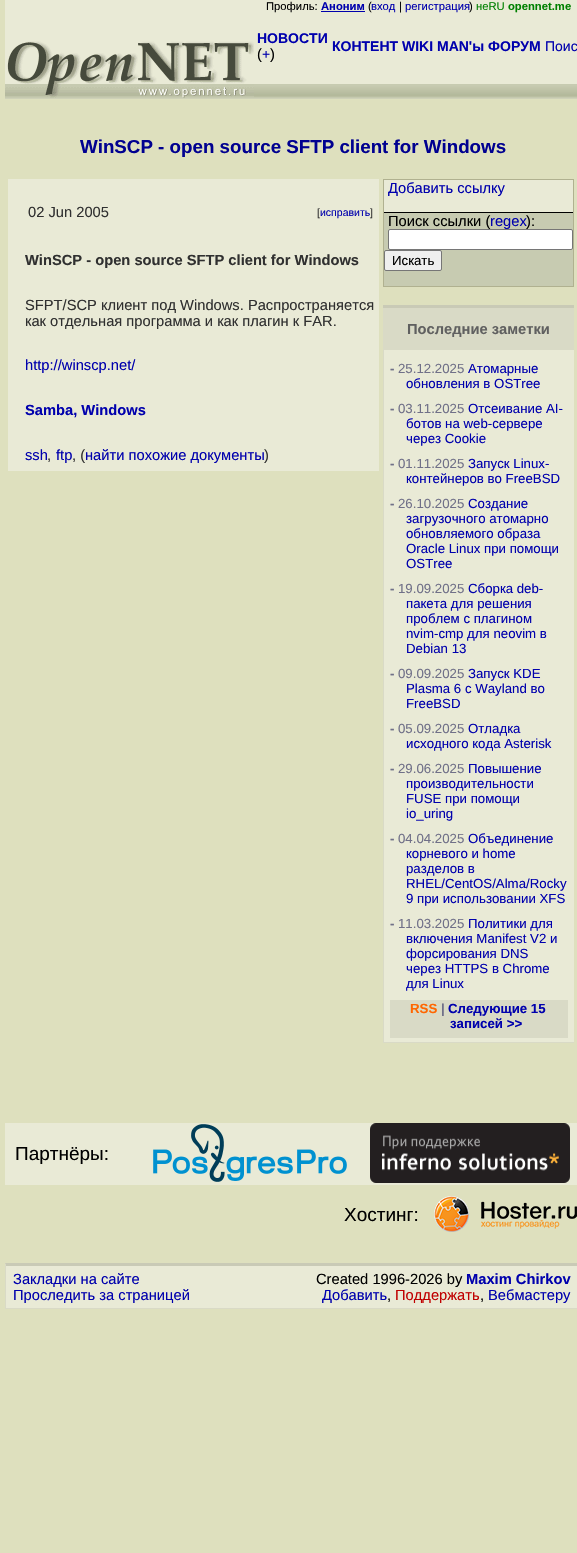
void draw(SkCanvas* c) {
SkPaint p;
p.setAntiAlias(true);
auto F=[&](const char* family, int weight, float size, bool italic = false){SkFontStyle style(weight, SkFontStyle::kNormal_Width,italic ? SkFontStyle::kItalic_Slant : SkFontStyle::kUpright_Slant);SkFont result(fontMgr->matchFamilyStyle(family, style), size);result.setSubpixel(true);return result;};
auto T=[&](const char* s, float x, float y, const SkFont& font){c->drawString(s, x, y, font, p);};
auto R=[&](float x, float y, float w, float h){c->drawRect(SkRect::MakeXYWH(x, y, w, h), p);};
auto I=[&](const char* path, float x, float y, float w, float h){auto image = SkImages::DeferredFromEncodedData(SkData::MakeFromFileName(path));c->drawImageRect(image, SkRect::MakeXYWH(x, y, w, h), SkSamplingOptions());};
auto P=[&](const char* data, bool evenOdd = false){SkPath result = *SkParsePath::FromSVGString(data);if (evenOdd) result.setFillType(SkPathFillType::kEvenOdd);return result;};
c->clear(0xffdee0be);
p.setColor(0xffe9ead6);
R(5,0,572,2);
R(5,2,572,82);
auto f1 = F("Liberation Sans",400,11.25);
p.setColor(0xff000000);
T("Профиль:",266,10,f1);
auto f2 = F("Liberation Sans",700,11.25);
p.setColor(0xff0000ad);
T("Аноним",321,10,f2);
R(321,11,44,1);
p.setColor(0xff000000);
T("(",368,10,f1);
p.setColor(0xff0000ad);
T("вход",371,10,f1);
p.setColor(0xff000000);
T("|",399,10,f1);
p.setColor(0xff0000ad);
T("регистрация",405,10,f1);
p.setColor(0xff000000);
T(")",469,10,f1);
p.setColor(0xff008000);
T("неRU",476,10,f1);
T("opennet.me",508,10,f2);
I("1.png",5,98,249,1);
I("2.png",5,41,249,57);
I("3.png",254,84,323,15);
auto f3 = F("Liberation Sans",700,14);
p.setColor(0xff0000ad);
T("НОВОСТИ",257,43,f3);
auto f4 = F("Liberation Sans",400,14.7);
p.setColor(0xff000000);
T("(",257,59,f4);
auto f5 = F("Liberation Sans",400,14);
p.setColor(0xff0000ad);
T("+",262,59,f5);
p.setColor(0xff000000);
T(")",270,59,f4);
p.setColor(0xff0000ad);
T("КОНТЕНТ WIKI MAN'ы ФОРУМ",332,51,f3);
T("Поис",545,51,f5);
auto f6 = F("Liberation Sans",700,18.75);
p.setColor(0xff000090);
T("WinSCP - open source SFTP client for Windows",80,153,f6);
p.setColor(0xffe9ead6);
R(8,179,371,292);
p.setColor(0xff303030);
T("02 Jun 2005",28,217,f4);
auto f7 = F("Liberation Sans",400,10.5);
T("[",317,216,f7);
p.setColor(0xff0000ad);
T("исправить",320,216,f7);
p.setColor(0xff303030);
T("]",370,216,f7);
auto f8 = F("Liberation Sans",700,14.7);
T("WinSCP - open source SFTP client for Windows",25,265,f8);
T("SFPT/SCP клиент под Windows. Распространяется",25,310,f4);
T("как отдельная программа и как плагин к FAR.",25,326,f4);
p.setColor(0xff0000ad);
T("http://winscp.net/",25,370,f4);
T("Samba, Windows",25,415,f8);
T("ssh",25,460,f4);
p.setColor(0xff303030);
T(",",47,460,f4);
p.setColor(0xff0000ad);
T("ftp",56,460,f4);
p.setColor(0xff303030);
T(", (",72,460,f4);
p.setColor(0xff0000ad);
T("найти похожие документы",85,460,f4);
p.setColor(0xff303030);
T(")",264,460,f4);
p.setColor(0xffb0b190);
R(383,179,191,108);
p.setColor(0xffe9ead6);
R(384,180,189,32);
p.setColor(0xff0000ad);
T("Добавить ссылку",388,193,f4);
p.setColor(0xff000000);
R(384,212,189,1);
p.setColor(0xffc7cbb1);
R(384,213,189,73);
p.setColor(0xff000000);
T("Поиск ссылки (",388,226,f4);
p.setColor(0xff0000ad);
T("regex",490,226,f4);
p.setColor(0xff000000);
T("):",526,226,f4);
p.setColor(0xffffffff);
c->drawRoundRect(SkRect::MakeXYWH(388.5,229.5,184,20),1.5,1.5,p);
p.setStroke(true);
p.setStrokeWidth(1);
p.setColor(0xff767676);
c->drawRoundRect(SkRect::MakeXYWH(388.5,229.5,184,20),1.5,1.5,p);
p.setStroke(false);
p.setColor(0xffefefef);
c->drawRoundRect(SkRect::MakeXYWH(384.5,250.5,57,20),1.5,1.5,p);
p.setStroke(true);
p.setColor(0xff767676);
c->drawRoundRect(SkRect::MakeXYWH(384.5,250.5,57,20),1.5,1.5,p);
auto f9 = F("Liberation Sans",400,13.25);
p.setStroke(false);
p.setColor(0xff000000);
T("Искать",392,265,f9);
p.setColor(0xffd9dac6);
R(383,308,191,42);
p.setColor(0xffc9cab6);
R(383,305,191,3);
p.setColor(0xff606060);
T("Последние заметки",407,334,f8);
p.setColor(0xffe9ead6);
R(384,350,190,692);
p.setColor(0xffd9dac6);
R(383,1042,191,1);
R(383,350,1,693);
auto f10 = F("Liberation Sans",700,13.25);
p.setColor(0xff707088);
T("-",390,373,f10);
T("25.12.2025",398,373,f9);
p.setColor(0xff0000ad);
T("Атомарные",468,373,f9);
T("обновления в OSTree",406,388,f9);
p.setColor(0xff707088);
T("-",390,413,f10);
T("03.11.2025",398,413,f9);
p.setColor(0xff0000ad);
T("Отсеивание AI-",468,413,f9);
T("ботов на web-сервере",406,428,f9);
T("через Cookie",406,443,f9);
p.setColor(0xff707088);
T("-",390,468,f10);
T("01.11.2025",398,468,f9);
p.setColor(0xff0000ad);
T("Запуск Linux-",468,468,f9);
T("контейнеров во FreeBSD",406,483,f9);
p.setColor(0xff707088);
T("-",390,508,f10);
T("26.10.2025",398,508,f9);
p.setColor(0xff0000ad);
T("Создание",468,508,f9);
T("загрузочного атомарно",406,523,f9);
T("обновляемого образа",406,538,f9);
T("Oracle Linux при помощи",406,553,f9);
T("OSTree",406,568,f9);
p.setColor(0xff707088);
T("-",390,593,f10);
T("19.09.2025",398,593,f9);
p.setColor(0xff0000ad);
T("Сборка deb-",468,593,f9);
T("пакета для решения",406,608,f9);
T("проблем с плагином",406,623,f9);
T("nvim-cmp для neovim в",406,638,f9);
T("Debian 13",406,653,f9);
p.setColor(0xff707088);
T("-",390,678,f10);
T("09.09.2025",398,678,f9);
p.setColor(0xff0000ad);
T("Запуск KDE",468,678,f9);
T("Plasma 6 с Wayland во",406,693,f9);
T("FreeBSD",406,708,f9);
p.setColor(0xff707088);
T("-",390,733,f10);
T("05.09.2025",398,733,f9);
p.setColor(0xff0000ad);
T("Отладка",468,733,f9);
T("исходного кода Asterisk",406,748,f9);
p.setColor(0xff707088);
T("-",390,773,f10);
T("29.06.2025",398,773,f9);
p.setColor(0xff0000ad);
T("Повышение",468,773,f9);
T("производительности",406,788,f9);
T("FUSE при помощи",406,803,f9);
T("io_uring",406,818,f9);
p.setColor(0xff707088);
T("-",390,843,f10);
T("04.04.2025",398,843,f9);
p.setColor(0xff0000ad);
T("Объединение",468,843,f9);
T("корневого и home",406,858,f9);
T("разделов в",406,873,f9);
T("RHEL/CentOS/Alma/Rocky",406,888,f9);
T("9 при использовании XFS",406,903,f9);
p.setColor(0xff707088);
T("-",390,928,f10);
T("11.03.2025",398,928,f9);
p.setColor(0xff0000ad);
T("Политики для",468,928,f9);
T("включения Manifest V2 и",406,943,f9);
T("форсирования DNS",406,958,f9);
T("через HTTPS в Chrome",406,973,f9);
T("для Linux",406,988,f9);
p.setColor(0xffd9dac6);
R(390,1000,178,38);
p.setColor(0xffff6600);
T("RSS",410,1013,f10);
p.setColor(0xff707088);
T("|",441,1013,f10);
p.setColor(0xff0000ad);
T("Следующие 15",448,1013,f10);
T("записей >>",450,1028,f10);
p.setColor(0xffe9ead6);
R(5,1123,572,62);
auto f11 = F("Liberation Sans",400,19);
p.setColor(0xff000000);
T("Партнёры:",15,1160,f11);
I("4.png",153,1124,194,58);
I("5.png",370,1123,200,60);
T("Хостинг:",344,1221,f11);
I("6.png",434,1196,143,36);
p.setColor(0xffe9ead6);
R(5,1263,572,45);
p.setColor(0xffc9cab6);
c->drawPath(P("M5 1263h572v3h-571z"),p);
p.setColor(0xffd9dac6);
R(5,1308,572,1);
c->drawPath(P("M5 1309v-46l1 3v42z"),p);
p.setColor(0xff0000ad);
T("Закладки на сайте",13,1284,f4);
T("Проследить за страницей",13,1300,f4);
p.setColor(0xff000000);
T("Created 1996-2026 by",316,1284,f4);
p.setColor(0xff0000ad);
T("Maxim Chirkov",466,1284,f8);
T("Добавить",322,1300,f4);
p.setColor(0xff000000);
T(",",387,1300,f4);
p.setColor(0xffc00000);
T("Поддержать",395,1300,f4);
p.setColor(0xff000000);
T(",",480,1300,f4);
p.setColor(0xff0000ad);
T("Вебмастеру",488,1300,f4);
}
